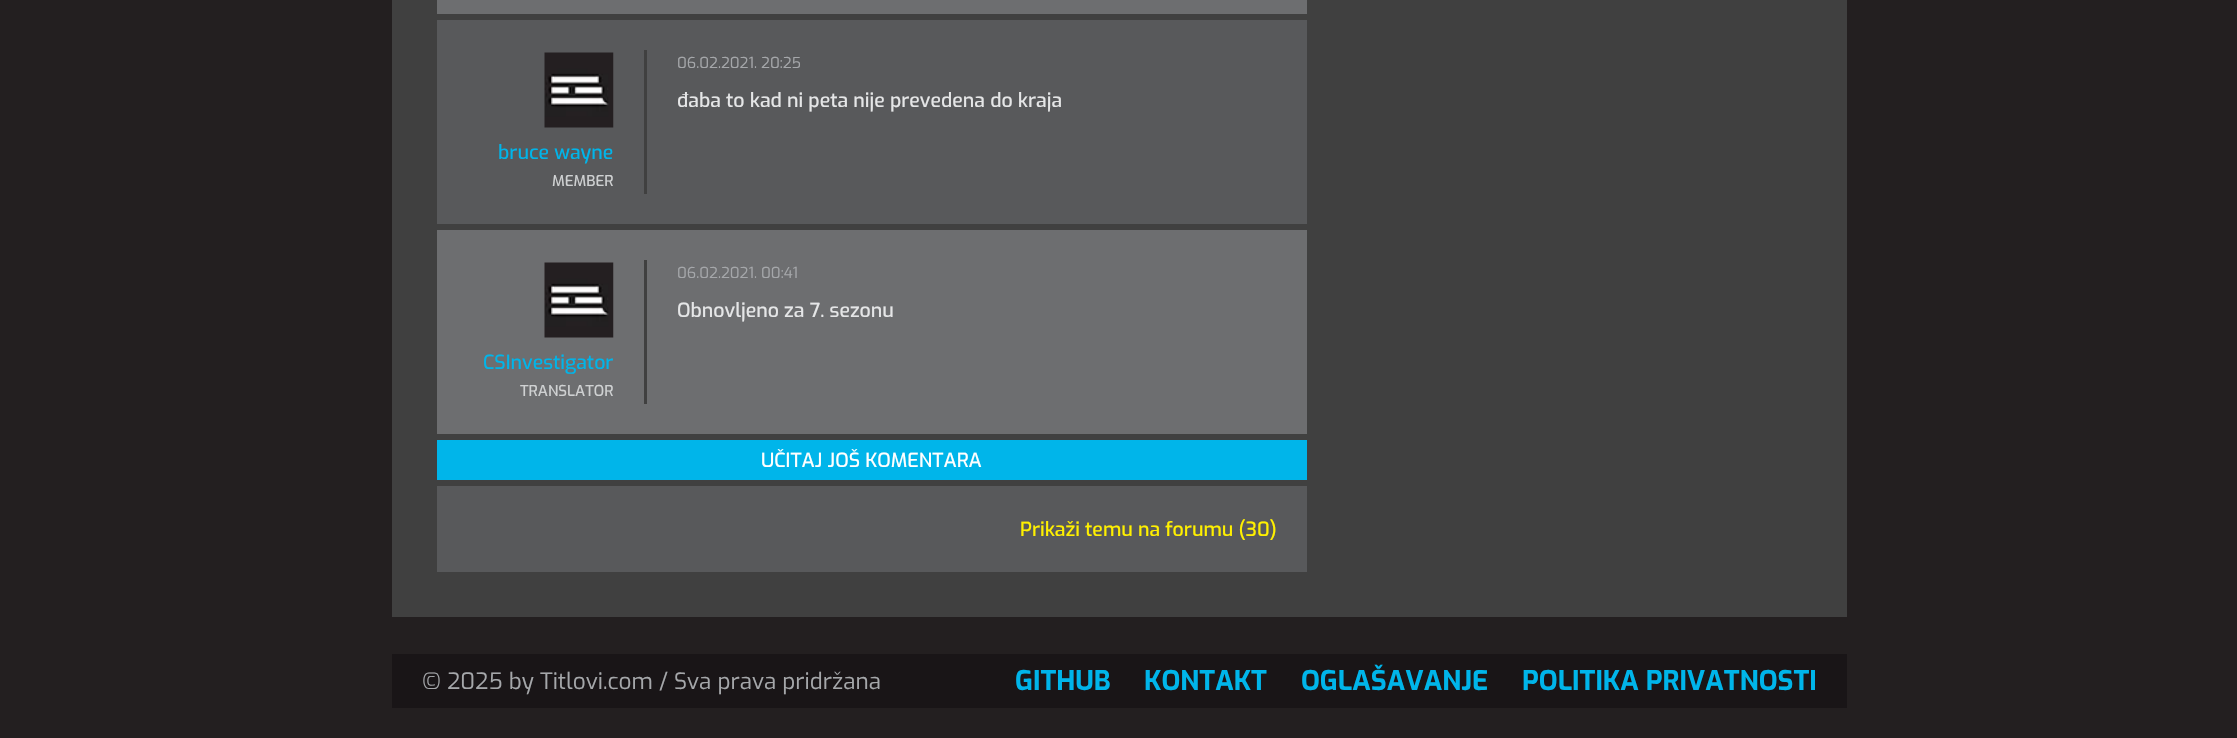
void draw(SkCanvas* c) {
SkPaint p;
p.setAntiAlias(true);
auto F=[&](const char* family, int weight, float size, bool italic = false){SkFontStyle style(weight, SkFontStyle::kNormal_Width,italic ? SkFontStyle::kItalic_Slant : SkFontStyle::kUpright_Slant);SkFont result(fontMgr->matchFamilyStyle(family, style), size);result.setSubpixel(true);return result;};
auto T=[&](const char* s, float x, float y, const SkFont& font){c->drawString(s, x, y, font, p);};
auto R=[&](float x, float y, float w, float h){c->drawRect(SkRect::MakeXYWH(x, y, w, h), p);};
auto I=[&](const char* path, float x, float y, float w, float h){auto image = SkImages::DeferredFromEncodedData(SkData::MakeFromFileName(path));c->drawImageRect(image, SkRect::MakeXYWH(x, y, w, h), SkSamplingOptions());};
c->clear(0xff231f20);
p.setColor(0xff404040);
R(392,0,1455,617);
p.setColor(0xff6d6e70);
R(437,0,870,14);
p.setColor(0xff58595b);
R(437,20,870,204);
auto f1 = F("Exo",400,15);
p.setColor(0xffa5a7aa);
T("06.02.2021. 20:25",677,68,f1);
auto f2 = F("Exo",500,19.5);
p.setColor(0xffe5e6e7);
T("đaba to kad ni peta nije prevedena do kraja",677,107,f2);
p.setColor(0xff404040);
R(644,50,3,144);
I("1.png",544,52,70,76);
p.setColor(0xff00b5ea);
T("bruce wayne",498,159,f2);
auto f3 = F("Exo",500,15);
p.setColor(0xffcfd1d2);
T("MEMBER",552,186,f3);
p.setColor(0xff6d6e70);
R(437,230,870,204);
p.setColor(0xffa5a7aa);
T("06.02.2021. 00:41",677,278,f1);
p.setColor(0xffe5e6e7);
T("Obnovljeno za 7. sezonu",677,317,f2);
p.setColor(0xff404040);
R(644,260,3,144);
I("2.png",544,262,70,76);
p.setColor(0xff00b5ea);
T("CSInvestigator",483,369,f2);
p.setColor(0xffcfd1d2);
T("TRANSLATOR",520,396,f3);
p.setColor(0xff00b5ea);
R(437,440,870,40);
p.setColor(0xffffffff);
T("UČITAJ JOŠ KOMENTARA",761,467,f2);
p.setColor(0xff58595b);
R(437,486,870,86);
p.setColor(0xfffff000);
T("Prikaži temu na forumu (30)",1020,536,f2);
p.setColor(0xff191517);
R(392,654,1455,54);
auto f4 = F("Exo",400,22.5);
p.setColor(0xffa5a7aa);
T("© 2025 by Titlovi.com / Sva prava pridržana",422,689,f4);
auto f5 = F("Exo",700,27);
p.setColor(0xff00b5ea);
T("GITHUB",1015,690,f5);
T("KONTAKT",1144,690,f5);
T("OGLAŠAVANJE",1301,690,f5);
T("POLITIKA PRIVATNOSTI",1522,690,f5);
}
